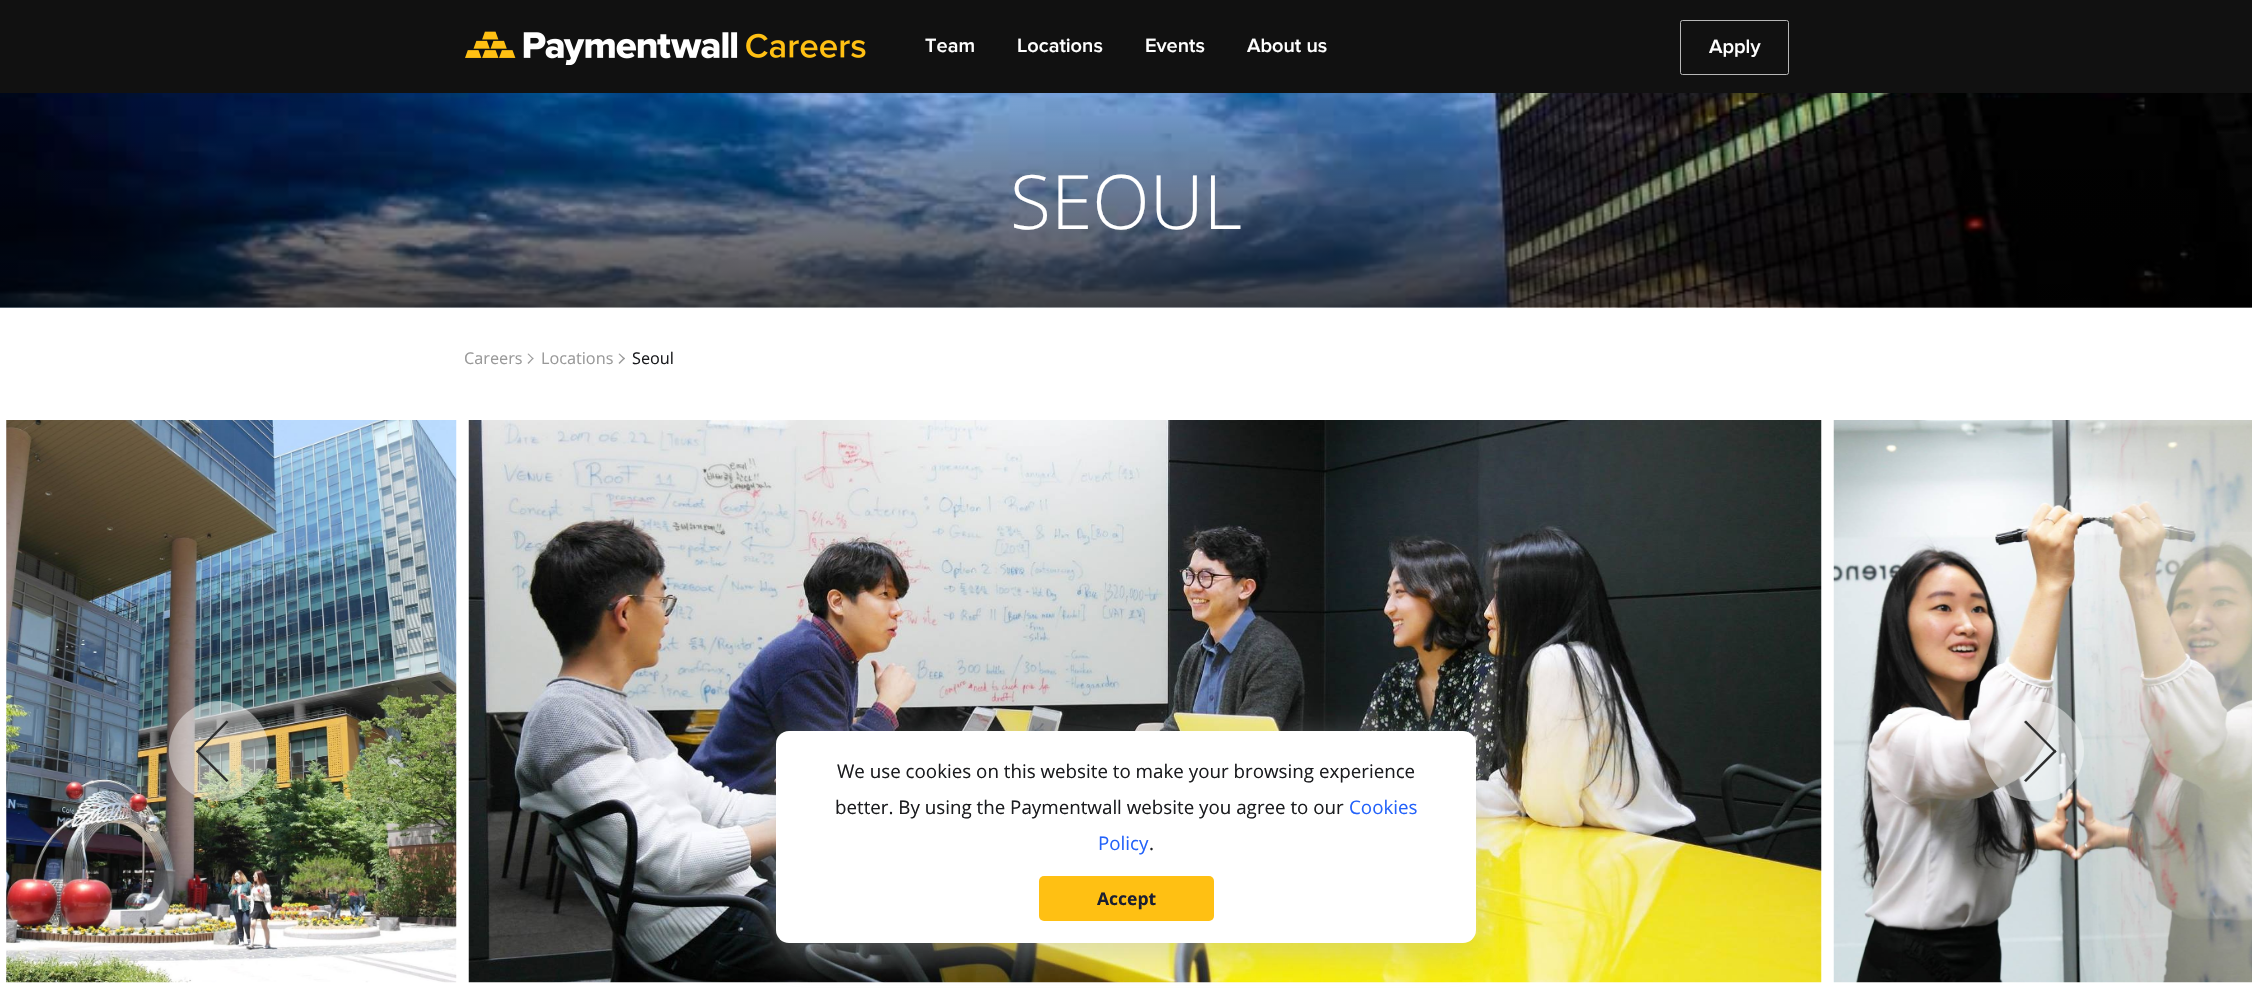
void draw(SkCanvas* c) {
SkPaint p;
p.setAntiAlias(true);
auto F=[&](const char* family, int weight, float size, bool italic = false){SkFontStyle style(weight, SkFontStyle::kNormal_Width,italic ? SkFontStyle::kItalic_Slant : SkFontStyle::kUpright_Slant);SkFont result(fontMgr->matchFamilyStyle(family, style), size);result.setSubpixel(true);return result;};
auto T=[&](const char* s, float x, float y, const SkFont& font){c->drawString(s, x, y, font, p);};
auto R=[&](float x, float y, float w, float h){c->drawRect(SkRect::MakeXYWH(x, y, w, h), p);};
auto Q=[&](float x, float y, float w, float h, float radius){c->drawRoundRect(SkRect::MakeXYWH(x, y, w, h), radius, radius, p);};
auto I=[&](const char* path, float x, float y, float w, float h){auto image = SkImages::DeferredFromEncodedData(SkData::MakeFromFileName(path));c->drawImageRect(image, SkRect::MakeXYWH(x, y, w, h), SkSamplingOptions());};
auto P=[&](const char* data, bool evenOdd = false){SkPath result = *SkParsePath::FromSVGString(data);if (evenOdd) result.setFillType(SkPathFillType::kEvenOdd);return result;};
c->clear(0xffffffff);
p.setColor(0xff111111);
R(0,0,2252,93);
I("1.png",465,31,401,34);
auto f1 = F("Proxima Nova",600,20);
p.setColor(0xffffffff);
T("Team",925,52,f1);
T("Locations",1017,52,f1);
T("Events",1145,52,f1);
T("About us",1247,52,f1);
p.setStroke(true);
p.setStrokeWidth(1);
p.setColor(0xffb8b8b8);
c->drawRoundRect(SkRect::MakeXYWH(1680.5,20.5,108,54),2,2,p);
p.setStroke(false);
p.setColor(0xffffffff);
T("Apply",1709,53,f1);
I("2.png",0,93,2252,215);
auto f2 = F("Open Sans",300,75);
T("SEOUL",1010,229,f2);
auto f3 = F("Open Sans",400,16.25);
p.setColor(0xff999999);
T("Careers",464,364,f3);
c->drawPath(P("M528.5 353.5l5 5l-.5 1l-5.5-5.5z"),p);
c->drawPath(P("M533 357.5l.5 1l-5 5.5l-1-1z"),p);
T("Locations",541,364,f3);
c->drawPath(P("M619.5 353.5l5.5 5l-1 1l-5.5-5.5z"),p);
c->drawPath(P("M624 357.5l1 1l-5.5 5.5l-1-1z"),p);
p.setColor(0xff1b1c1f);
T("Seoul",632,364,f3);
I("3.png",6,420,451,563);
I("4.png",468,420,1354,563);
I("5.png",1833,420,419,563);
p.setColor(0x73ffffff);
c->drawPath(P("M183 787c-19-20-19-52 0-71c20-20 52-20 71 0c20 19 20 51 0 71c-19 19-51 19-71 0z"),p);
p.setColor(0xff2d2e2e);
c->drawPath(P("M226.5 782l-30.5-30.5l1.5-2l31 31z"),p);
c->drawPath(P("M197.5 753l-1.5-1.5l30.5-31l2 1.5z"),p);
p.setColor(0x73ffffff);
c->drawPath(P("M2069 716c20 19 20 51 0 71c-19 19-51 19-71 0c-19-20-19-52 0-71c20-20 52-20 71 0z"),p);
p.setColor(0xff2d2e2e);
c->drawPath(P("M2026 720.5l30.5 31l-1.5 1.5l-31-31z"),p);
c->drawPath(P("M2055 749.5l1.5 2l-30.5 30.5l-2-1.5z"),p);
p.setColor(0x80b4babd);
p.setMaskFilter(SkMaskFilter::MakeBlur(kNormal_SkBlurStyle, 18));
c->drawRoundRect(SkRect::MakeXYWH(776,741,700,212),13,13,p);
p.setMaskFilter(nullptr);
p.setColor(0xffffffff);
Q(776,731,700,212,13);
auto f4 = F("Open Sans",400,18.75);
p.setColor(0xff1b1c1f);
T("We use cookies on this website to make your browsing experience",837,778,f4);
T("better. By using the Paymentwall website you agree to our",835,814,f4);
p.setColor(0xff2362fa);
T("Cookies",1349,814,f4);
T("Policy",1098,850,f4);
p.setColor(0xff1b1c1f);
T(".",1149,850,f4);
p.setColor(0xffffc013);
Q(1039,876,175,45,5);
auto f5 = F("Open Sans",700,17.5);
p.setColor(0xff1b1f31);
T("Accept",1097,905,f5);
}
